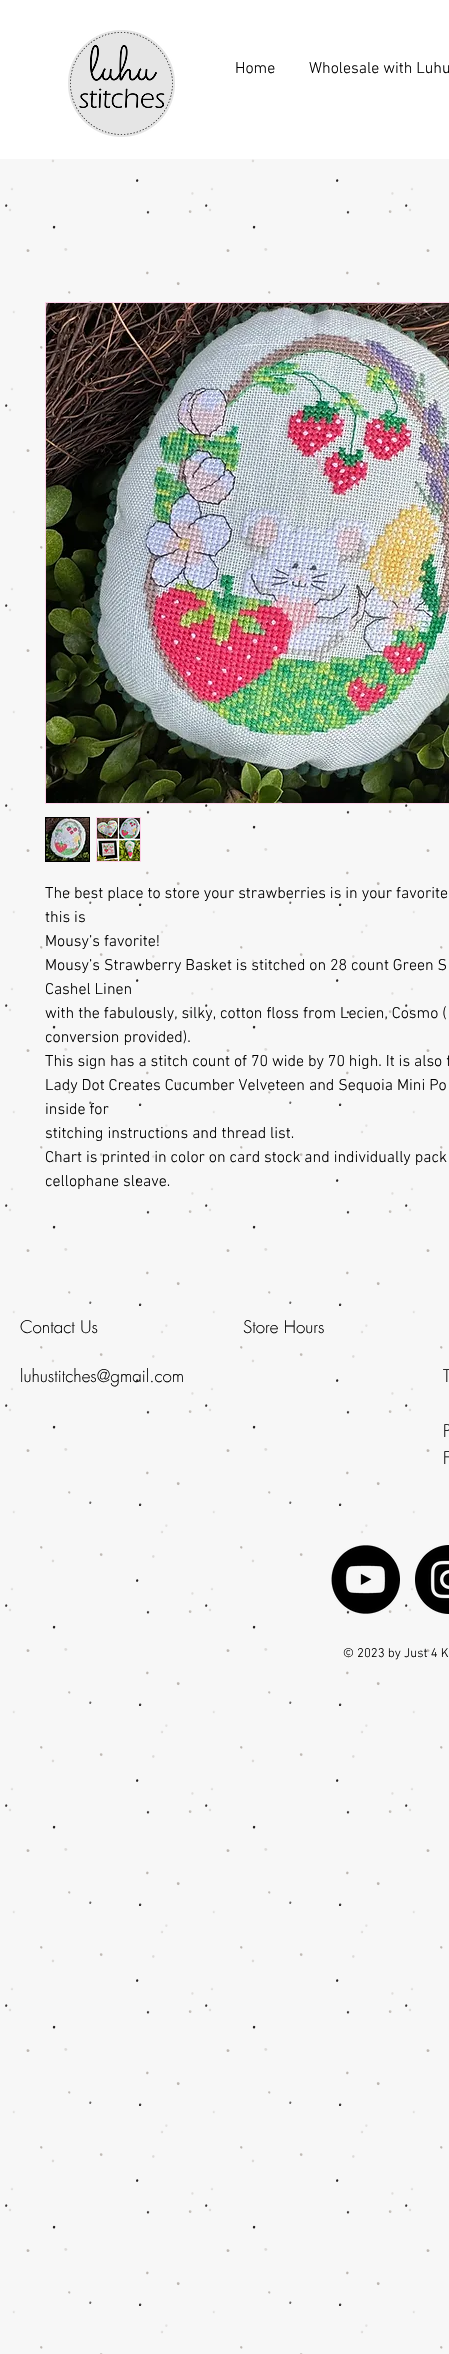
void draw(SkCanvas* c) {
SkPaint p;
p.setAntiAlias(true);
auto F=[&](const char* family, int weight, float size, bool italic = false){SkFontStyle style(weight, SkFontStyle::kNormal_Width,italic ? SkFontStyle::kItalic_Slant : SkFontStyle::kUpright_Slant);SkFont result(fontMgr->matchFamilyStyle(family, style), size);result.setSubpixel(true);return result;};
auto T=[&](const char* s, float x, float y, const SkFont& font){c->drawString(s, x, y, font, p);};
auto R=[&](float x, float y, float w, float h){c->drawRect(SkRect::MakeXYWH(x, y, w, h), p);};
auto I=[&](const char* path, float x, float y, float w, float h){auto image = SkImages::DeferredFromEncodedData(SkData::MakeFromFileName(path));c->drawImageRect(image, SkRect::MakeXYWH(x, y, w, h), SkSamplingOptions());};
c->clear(0xfff7f7f7);
p.setColor(0xffffffff);
R(0,0,449,159);
I("1.png",68,30,107,107);
auto f1 = F("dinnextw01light",300,16);
p.setColor(0xff000000);
T("Home",235,73,f1);
T("Wholesale with Luhu",309,73,f1);
I("7.png",5,159,438,2195);
p.setStroke(true);
p.setStrokeWidth(1);
p.setColor(0xffffd1ea);
c->drawRect(SkRect::MakeXYWH(45.5,302.5,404,501),p);
I("2.png",46,303,403,500);
p.setColor(0xff000000);
c->drawRect(SkRect::MakeXYWH(45.5,817.5,44,44),p);
I("3.png",46,818,43,43);
p.setColor(0xffffd1ea);
c->drawRect(SkRect::MakeXYWH(96.5,817.5,44,44),p);
I("4.png",97,818,43,43);
p.setStroke(false);
p.setColor(0xff000000);
T("The best place to store your strawberries is in your favorite",45,898,f1);
T("this is",45,922,f1);
T("Mousy’s favorite!",45,946,f1);
T("Mousy’s Strawberry Basket is stitched on 28 count Green S",45,970,f1);
T("Cashel Linen",45,994,f1);
T("with the fabulously, silky, cotton floss from Lecien, Cosmo (",45,1018,f1);
T("conversion provided).",45,1042,f1);
T("This sign has a stitch count of 70 wide by 70 high. It is also f",45,1066,f1);
T("Lady Dot Creates Cucumber Velveteen and Sequoia Mini Po",45,1090,f1);
T("inside for",45,1114,f1);
T("stitching instructions and thread list.",45,1138,f1);
T("Chart is printed in color on card stock and individually pack",45,1162,f1);
T("cellophane sleave.",45,1186,f1);
auto f2 = F("futura",300,17);
T("Contact Us",20,1333,f2);
T("Store Hours",243,1333,f2);
T("luhustitches@gmail.com",20,1382,f2);
T("T",443,1382,f2);
T("P",443,1437,f2);
T("F",443,1464,f2);
I("5.png",331,1545,69,69);
I("6.png",415,1545,34,69);
auto f3 = F("dinnextw01light",300,13);
T("© 2023 by Just 4 K",343,1657,f3);
}
